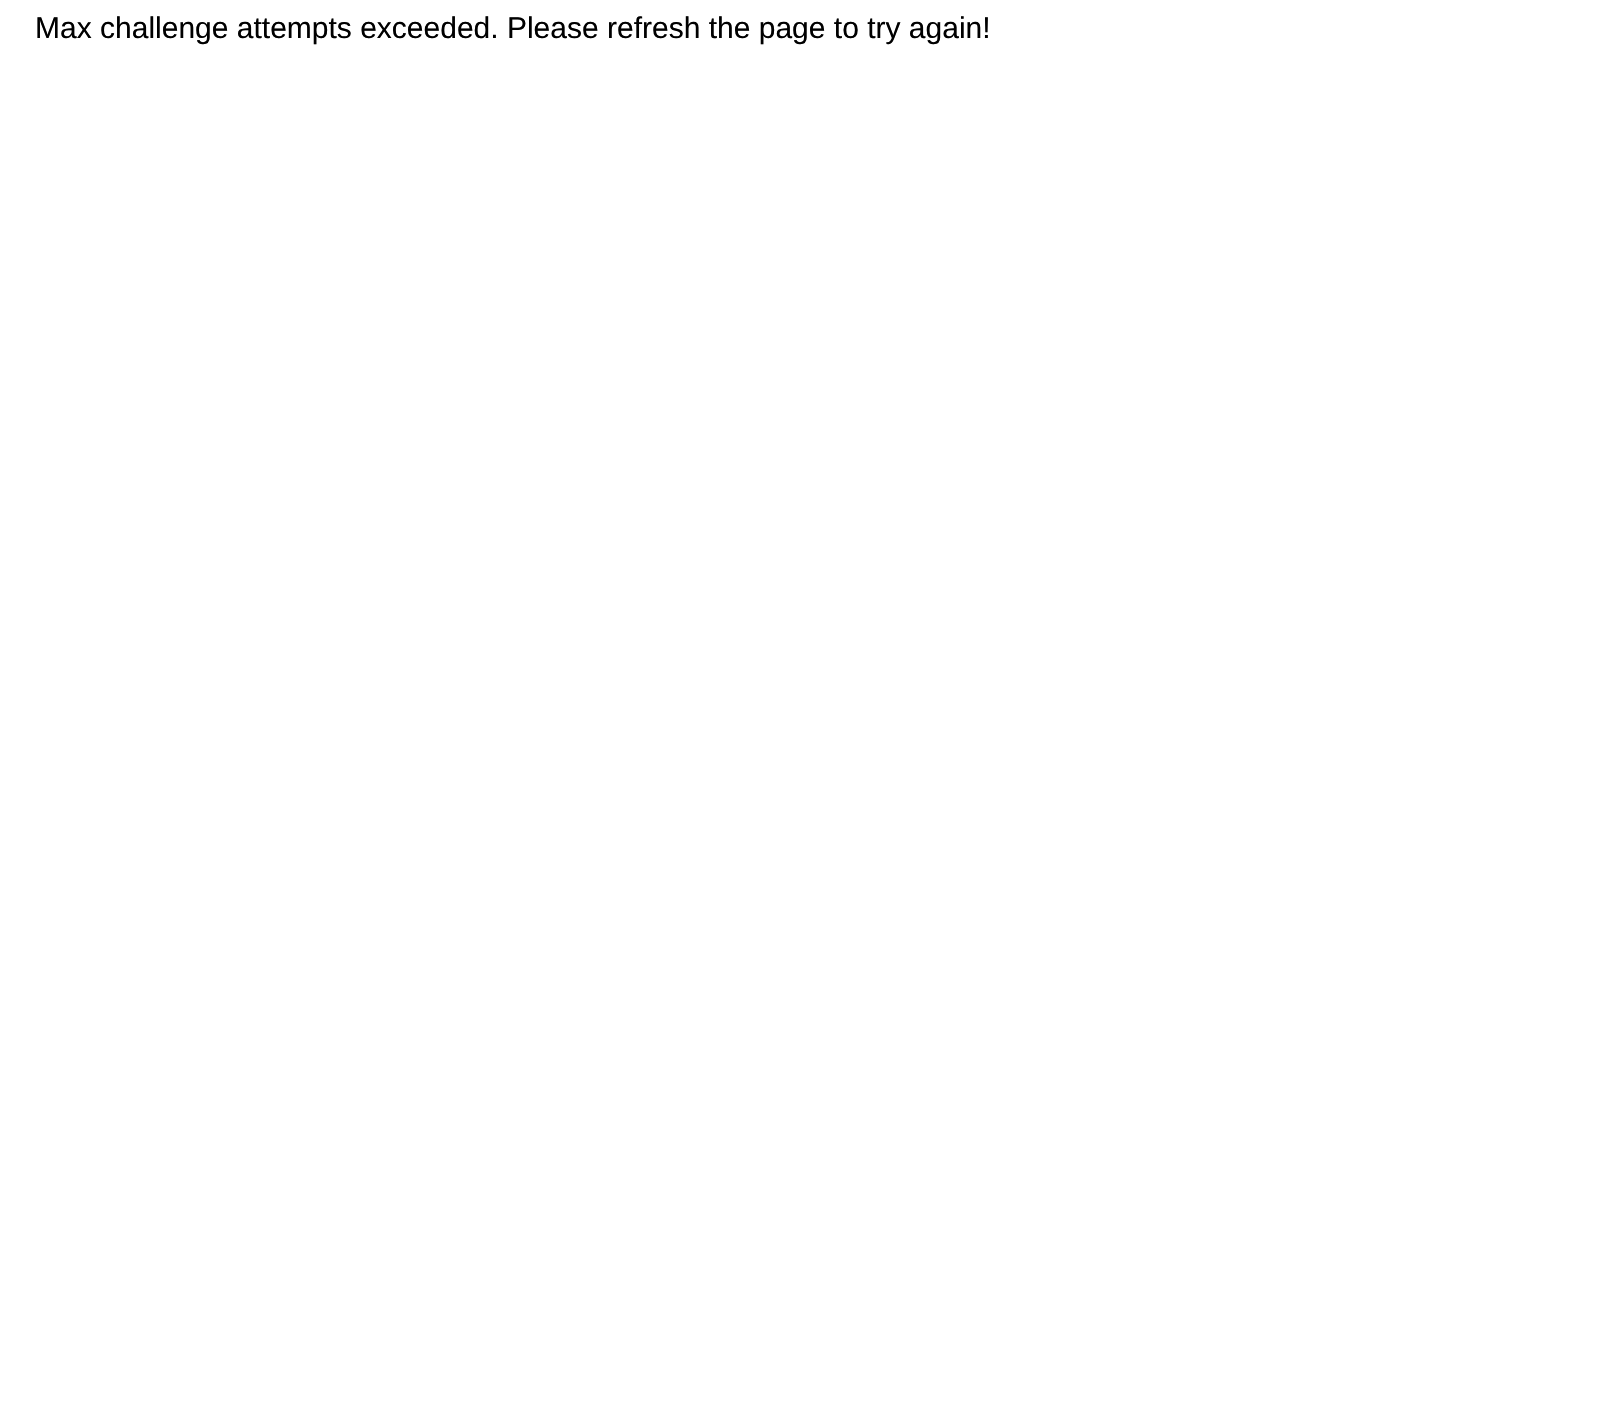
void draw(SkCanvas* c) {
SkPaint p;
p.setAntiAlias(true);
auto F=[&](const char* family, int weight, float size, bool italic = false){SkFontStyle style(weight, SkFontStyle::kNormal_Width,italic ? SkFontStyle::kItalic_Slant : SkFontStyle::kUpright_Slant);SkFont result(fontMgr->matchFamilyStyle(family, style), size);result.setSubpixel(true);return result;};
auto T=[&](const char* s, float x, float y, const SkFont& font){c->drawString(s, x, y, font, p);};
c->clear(0xffffffff);
auto f1 = F("Liberation Sans",400,30);
p.setColor(0xff000000);
T("Max challenge attempts exceeded. Please refresh the page to try again!",35,38,f1);
}
